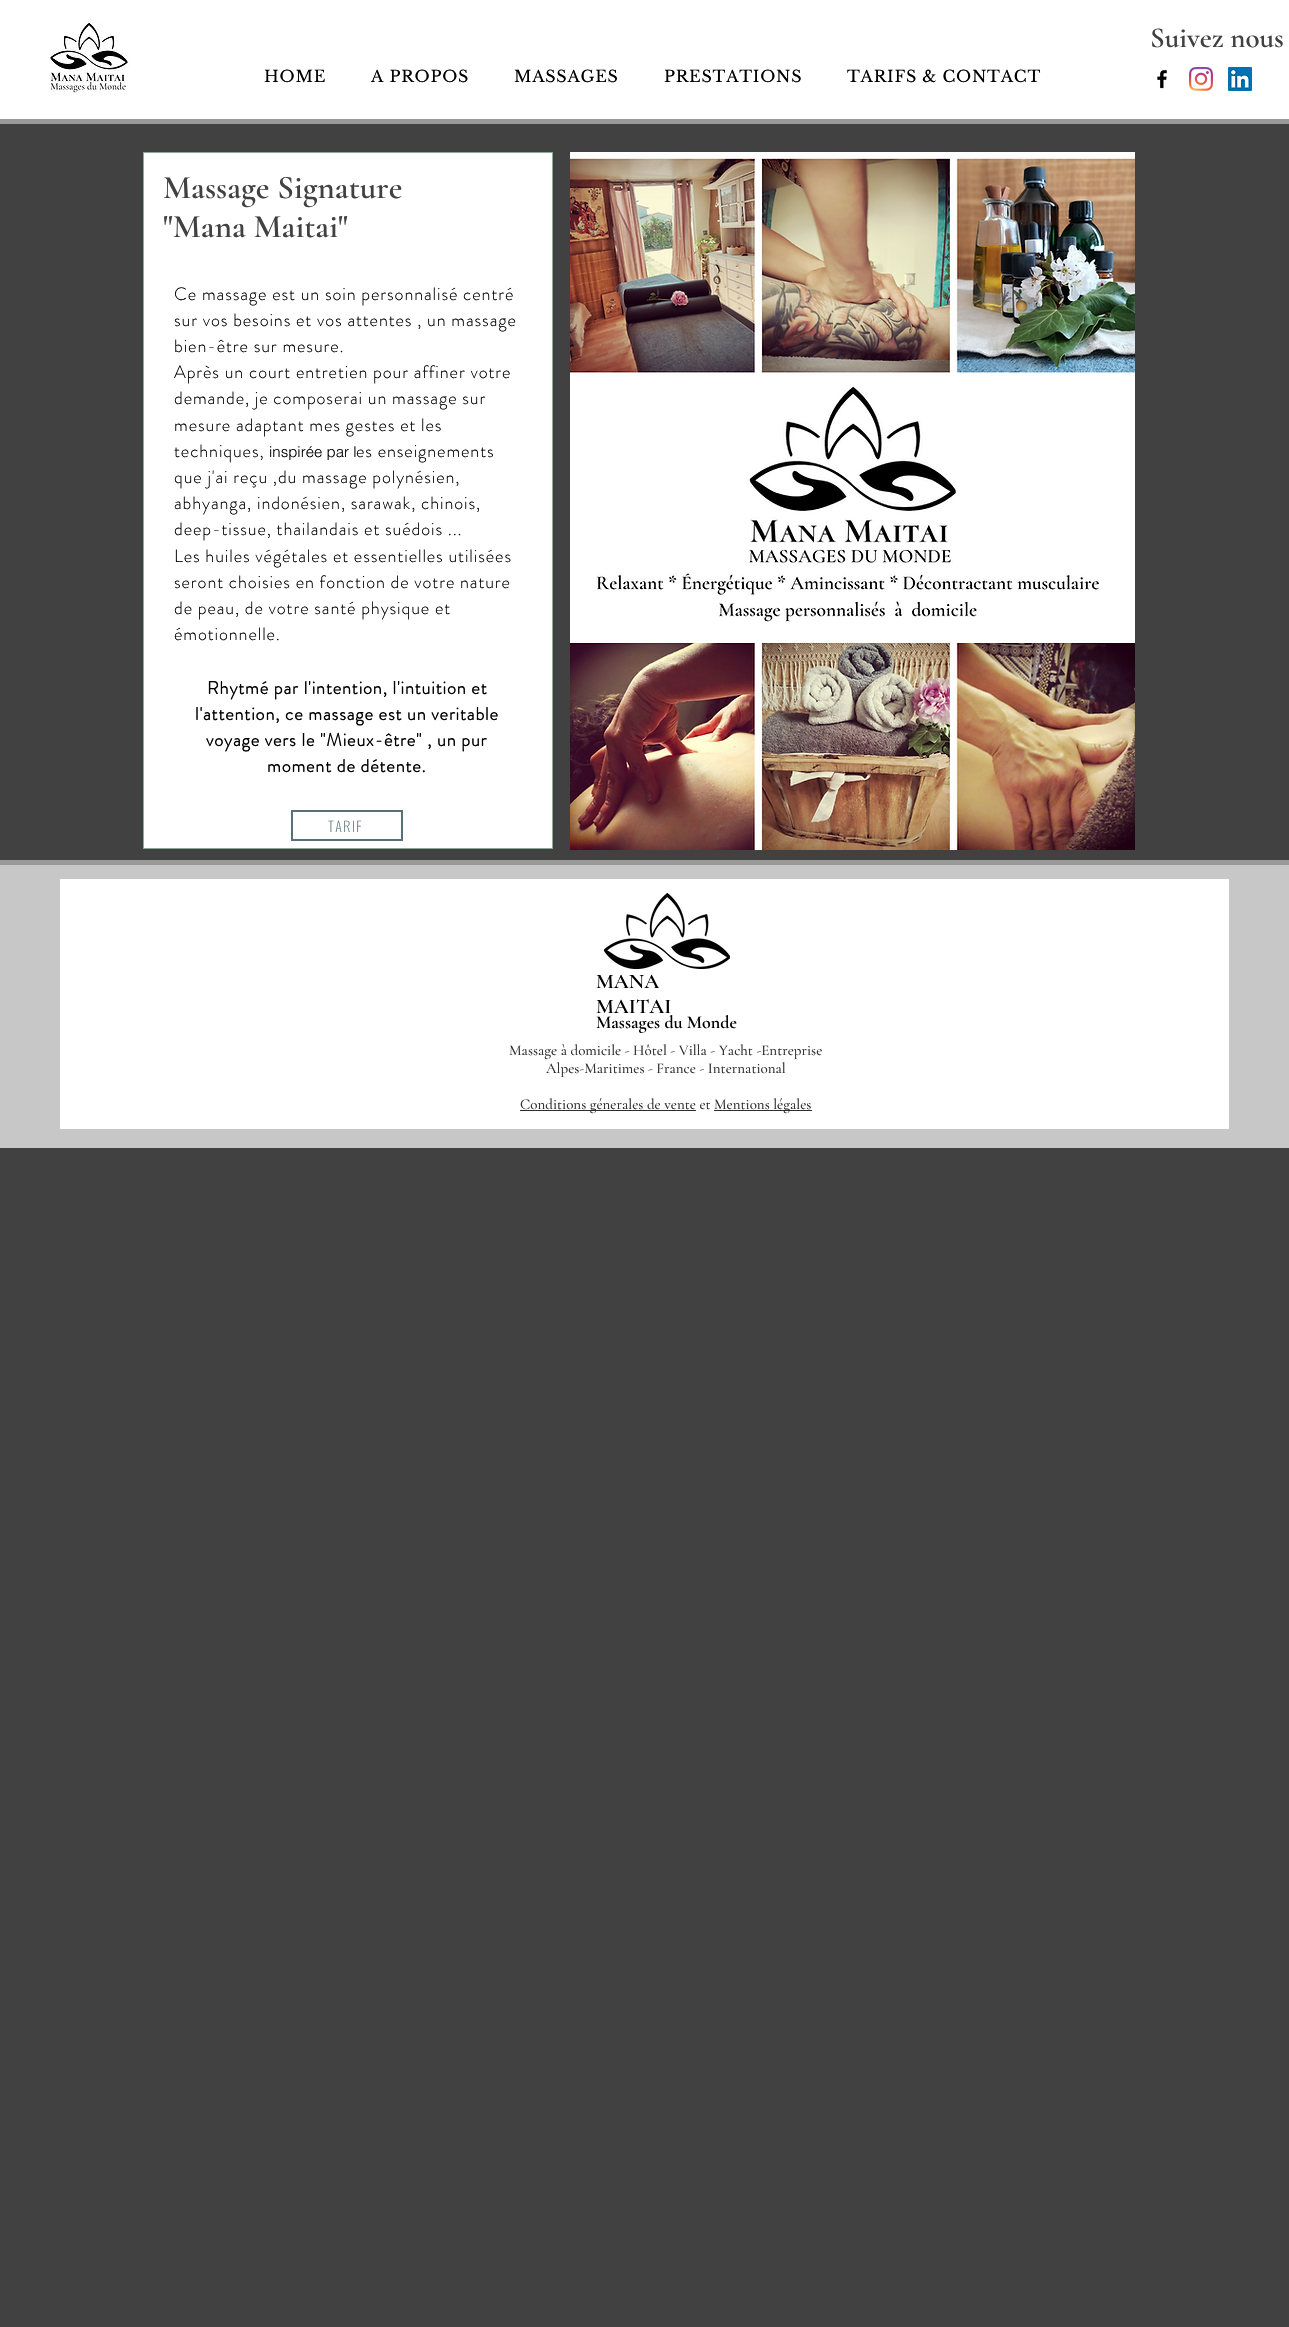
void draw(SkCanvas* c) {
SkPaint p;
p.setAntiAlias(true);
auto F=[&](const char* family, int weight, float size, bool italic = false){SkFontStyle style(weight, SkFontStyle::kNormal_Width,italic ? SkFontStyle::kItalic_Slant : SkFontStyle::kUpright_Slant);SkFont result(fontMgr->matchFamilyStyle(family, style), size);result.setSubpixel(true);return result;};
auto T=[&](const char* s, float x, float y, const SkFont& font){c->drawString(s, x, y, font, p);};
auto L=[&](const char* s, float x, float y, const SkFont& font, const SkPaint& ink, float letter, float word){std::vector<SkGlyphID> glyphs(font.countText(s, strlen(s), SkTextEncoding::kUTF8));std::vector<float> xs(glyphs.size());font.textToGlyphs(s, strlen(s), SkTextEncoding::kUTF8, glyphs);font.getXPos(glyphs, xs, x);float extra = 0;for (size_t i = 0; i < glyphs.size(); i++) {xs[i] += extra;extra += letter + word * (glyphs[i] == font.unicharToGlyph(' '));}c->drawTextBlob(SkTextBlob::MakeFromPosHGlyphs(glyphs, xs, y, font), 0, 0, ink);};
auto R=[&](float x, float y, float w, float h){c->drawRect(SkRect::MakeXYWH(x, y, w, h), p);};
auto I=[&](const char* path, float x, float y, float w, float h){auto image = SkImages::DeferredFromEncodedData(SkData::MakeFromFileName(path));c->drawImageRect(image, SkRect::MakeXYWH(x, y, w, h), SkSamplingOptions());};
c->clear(0xff414141);
p.setColor(0xffffffff);
R(0,0,1289,119);
p.setColor(0xff999997);
R(0,119,1289,5);
I("1.png",49,20,80,73);
auto f1 = F("Cormorant Garamond",600,29);
p.setColor(0xff414141);
T("Suivez nous",1150,47,f1);
auto f2 = F("Libre Baskerville",400,16);
p.setColor(0xff000000);
L("HOME",264,82,f2,p,.75,0);
L("A PROPOS",371,82,f2,p,.75,0);
L("MASSAGES",514,82,f2,p,.75,0);
L("PRESTATIONS",664,82,f2,p,.75,0);
L("TARIFS & CONTACT",847,82,f2,p,.75,0);
I("2.png",1157,69,10,20);
I("3.png",1189,67,24,24);
I("4.png",1228,67,24,24);
p.setColor(0xffffffff);
c->drawRect(SkRect::MakeXYWH(143.5,152.5,409,696),p);
p.setStroke(true);
p.setStrokeWidth(1);
p.setColor(0xff8baa95);
c->drawRect(SkRect::MakeXYWH(143.5,152.5,409,696),p);
auto f3 = F("Cormorant Garamond",600,33);
p.setStroke(false);
p.setColor(0xff414141);
T("Massage Signature",163,198,f3);
T("\"Mana Maitai\"",163,237,f3);
auto f4 = F("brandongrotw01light",300,18);
p.setColor(0xff000000);
L("Ce massage est un soin personnalisé centré",174,300,f4,p,.9,0);
L("sur vos besoins et vos attentes , un massage",174,326,f4,p,.9,0);
L("bien-être sur mesure.",174,352,f4,p,.9,0);
L("Après un court entretien pour affiner votre",174,378,f4,p,.9,0);
L("demande, je composerai un massage sur",174,404,f4,p,.9,0);
L("mesure adaptant mes gestes et les",174,431,f4,p,.9,0);
L("techniques,",174,457,f4,p,.9,0);
auto f5 = F("helvetica",300,15);
T("inspirée par l",269,457,f5);
L("es enseignements",356,457,f4,p,.9,0);
L("que j'ai reçu ,du massage polynésien,",174,483,f4,p,.9,0);
L("abhyanga, indonésien, sarawak, chinois,",174,509,f4,p,.9,0);
L("deep-tissue, thailandais et suédois ...",174,535,f4,p,.9,0);
L("Les huiles végétales et essentielles utilisées",174,562,f4,p,.9,0);
L("seront choisies en fonction de votre nature",174,588,f4,p,.9,0);
L("de peau, de votre santé physique et",174,614,f4,p,.9,0);
L("émotionnelle.",174,640,f4,p,.9,0);
auto f6 = F("brandongrotw01light",700,18);
L("Rhytmé par l'intention, l'intuition et",207,694,f6,p,.9,0);
L("l'attention, ce massage est un veritable",195,720,f6,p,.9,0);
L("voyage vers le \"Mieux-être\" , un pur",206,746,f6,p,.9,0);
L("moment de détente.",267,772,f6,p,.9,0);
p.setStroke(true);
p.setStrokeWidth(2);
p.setColor(0xff567278);
c->drawRect(SkRect::MakeXYWH(292,811,110,29),p);
auto f7 = F("Oswald",200,14);
p.setStroke(false);
L("TARIF",328,832,f7,p,1.5,0);
I("5.png",570,152,565,698);
p.setColor(0xffc7c7c7);
R(0,865,1289,283);
p.setColor(0xff999997);
R(0,860,1289,5);
p.setColor(0xffffffff);
R(60,879,1169,250);
I("6.png",604,893,126,76);
auto f8 = F("Cormorant Garamond",600,21);
p.setColor(0xff000000);
T("MANA",596,988,f8);
T("MAITAI",596,1013,f8);
auto f9 = F("Cormorant Garamond",600,18);
T("Massages du Monde",596,1028,f9);
auto f10 = F("Cormorant Garamond",500,15);
p.setColor(0xff2f2e2e);
T("Massage à domicile - Hôtel - Villa - Yacht -Entreprise",509,1055,f10);
T("Alpes-Maritimes - France - International",546,1073,f10);
R(520,1110,176,1);
T("Conditions génerales de vente et",520,1109,f10);
R(714,1110,98,1);
T("Mentions légales",714,1109,f10);
}
